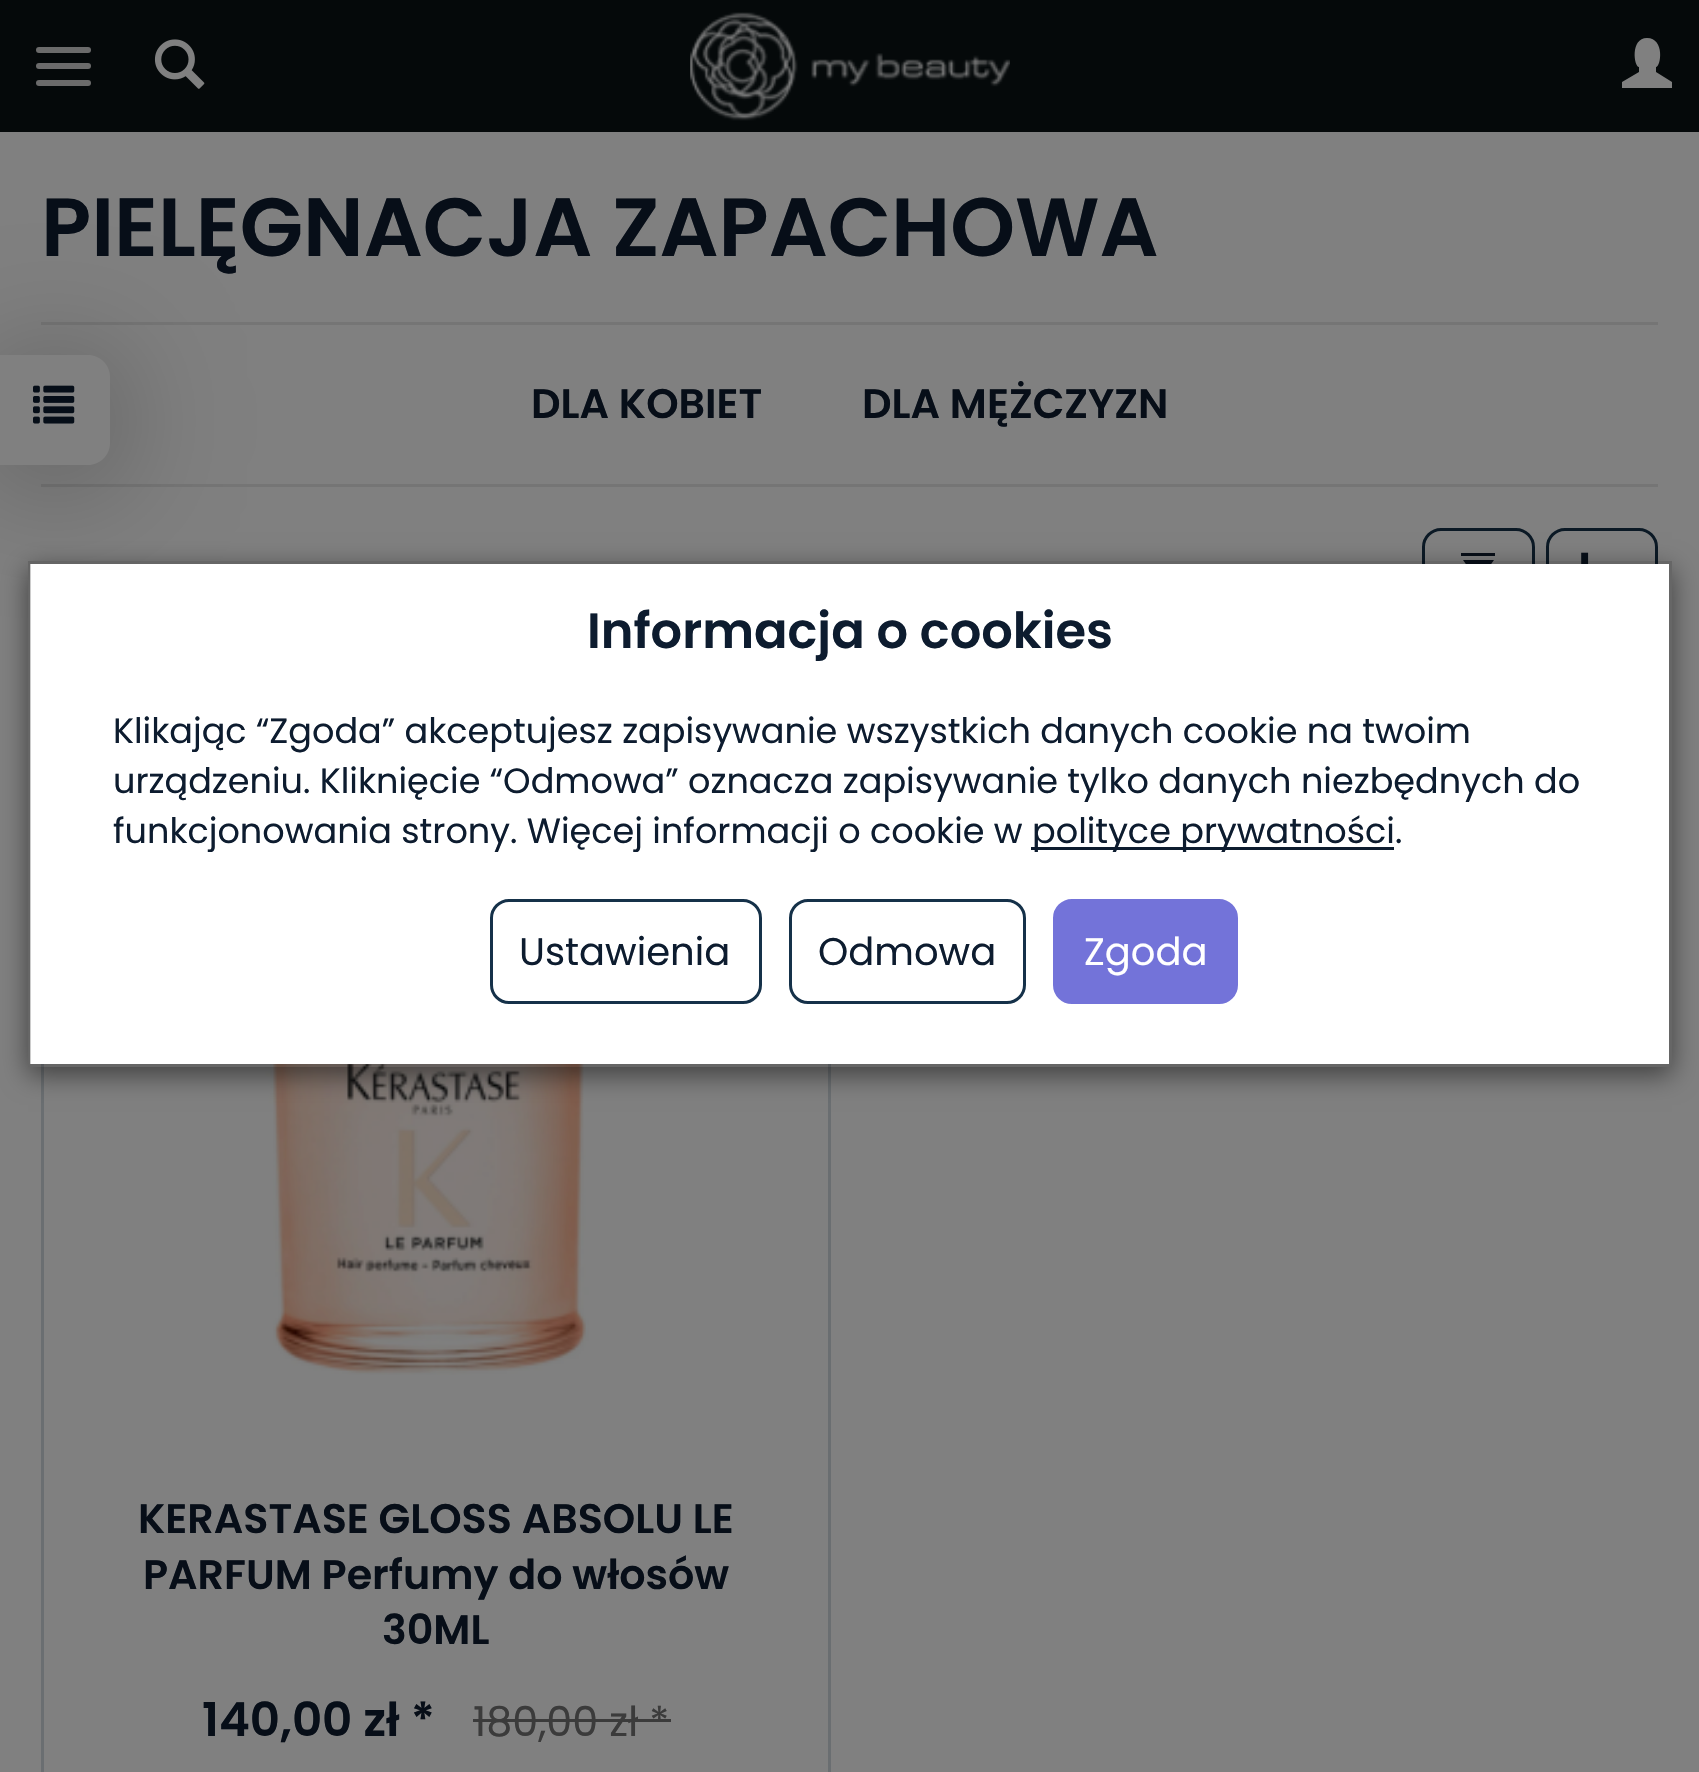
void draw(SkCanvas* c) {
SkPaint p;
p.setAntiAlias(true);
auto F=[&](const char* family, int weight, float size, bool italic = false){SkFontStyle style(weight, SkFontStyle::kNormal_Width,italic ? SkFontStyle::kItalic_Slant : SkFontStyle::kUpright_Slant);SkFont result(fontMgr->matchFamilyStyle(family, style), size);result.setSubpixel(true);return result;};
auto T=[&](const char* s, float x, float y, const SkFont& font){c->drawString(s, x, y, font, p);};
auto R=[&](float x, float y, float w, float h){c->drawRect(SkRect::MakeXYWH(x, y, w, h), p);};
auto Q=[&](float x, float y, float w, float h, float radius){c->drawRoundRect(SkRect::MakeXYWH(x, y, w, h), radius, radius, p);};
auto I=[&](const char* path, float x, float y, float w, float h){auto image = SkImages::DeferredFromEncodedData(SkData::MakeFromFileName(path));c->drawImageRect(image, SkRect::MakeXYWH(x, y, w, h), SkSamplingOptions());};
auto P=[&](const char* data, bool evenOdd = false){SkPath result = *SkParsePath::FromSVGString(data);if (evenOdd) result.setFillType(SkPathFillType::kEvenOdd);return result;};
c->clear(0xff808080);
p.setColor(0xff05090a);
R(0,0,1699,132);
p.setColor(0xff6b6b6b);
Q(36,47,55,6,3);
Q(36,63,55,6,3);
Q(36,80,55,6,3);
I("1.png",154,39,51,50);
I("2.png",690,12,320,109);
p.setColor(0xff808080);
c->drawPath(P("M1622 88v-6l17-10v-5c-5 0-9-29 8-29c18 0 14 29 9 29v5l16 10v6z"),p);
p.setColor(0xff757575);
R(41,322,1617,3);
R(41,484,1617,3);
p.setColor(0x59000000);
p.setMaskFilter(SkMaskFilter::MakeBlur(kNormal_SkBlurStyle, 62));
c->drawRoundRect(SkRect::MakeXYWH(0,366,110,110),22,22,p);
p.setMaskFilter(nullptr);
p.setColor(0xff808080);
c->drawPath(P("M0 355h88c12 0 22 10 22 22v66c0 12-10 22-22 22h-88z"),p);
I("3.png",33,385,42,39);
auto f1 = F("Poppins",600,82.5);
p.setColor(0xff070e18);
T("PIELĘGNACJA ZAPACHOWA",41,256,f1);
auto f2 = F("Poppins",600,41.25);
T("DLA KOBIET",531,418,f2);
T("DLA MĘŻCZYZN",862,418,f2);
p.setStroke(true);
p.setStrokeWidth(3);
p.setColor(0xff0b1925);
c->drawRoundRect(SkRect::MakeXYWH(1423.5,529.5,110,93),17.5,17.5,p);
p.setStroke(false);
p.setColor(0xff070e18);
c->drawPath(P("M1461 556v-3h34v3zm2 4h31l-12 17v10l-7 7v-17z"),p);
p.setStroke(true);
p.setColor(0xff0b1925);
c->drawRoundRect(SkRect::MakeXYWH(1547.5,529.5,109,93),17.5,17.5,p);
I("4.png",1581,552,8,12);
p.setColor(0xff6a6e71);
c->drawRect(SkRect::MakeXYWH(42.5,664.5,787,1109),p);
I("5.png",44,1064,784,311);
p.setStroke(false);
p.setColor(0xff070e18);
T("KERASTASE GLOSS ABSOLU LE",138,1533,f2);
T("PARFUM Perfumy do włosów",143,1589,f2);
T("30ML",382,1644,f2);
auto f3 = F("Poppins",600,46.75);
T("140,00 zł *",202,1736,f3);
auto f4 = F("Poppins",400,41.25);
p.setColor(0xff3b3b3b);
T("180,00 zł *",473,1736,f4);
R(473,1719,198,3);
c->save();
c->clipPath(P("M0 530h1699v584h-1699zm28 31h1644v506h-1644z",true),true);
p.setColor(0x80000000);
p.setMaskFilter(SkMaskFilter::MakeBlur(kNormal_SkBlurStyle, 12.5));
c->drawRect(SkRect::MakeXYWH(28,569,1644,506),p);
p.setMaskFilter(nullptr);
c->restore();
p.setColor(0xffffffff);
R(30,564,1639,500);
p.setStroke(true);
p.setColor(0x33000000);
c->drawRect(SkRect::MakeXYWH(29.5,562.5,1641,503),p);
auto f5 = F("Poppins",600,49.5);
p.setStroke(false);
p.setColor(0xff0d1c2f);
T("Informacja o cookies",587,648,f5);
auto f6 = F("Poppins",400,35.05);
T("Klikając “Zgoda” akceptujesz zapisywanie wszystkich danych cookie na twoim",113,743,f6);
T("urządzeniu. Kliknięcie “Odmowa” oznacza zapisywanie tylko danych niezbędnych do",113,793,f6);
T("funkcjonowania strony. Więcej informacji o cookie w",113,843,f6);
R(1031,847,363,3);
T("polityce prywatności.",1032,843,f6);
p.setStroke(true);
p.setColor(0xff153149);
c->drawRoundRect(SkRect::MakeXYWH(491.5,900.5,269,102),17.5,17.5,p);
auto f7 = F("Poppins",400,38.5);
p.setStroke(false);
p.setColor(0xff0d1c2f);
T("Ustawienia",519,965,f7);
p.setStroke(true);
p.setColor(0xff153149);
c->drawRoundRect(SkRect::MakeXYWH(790.5,900.5,234,102),17.5,17.5,p);
p.setStroke(false);
p.setColor(0xff0d1c2f);
T("Odmowa",818,965,f7);
p.setColor(0xff7373d9);
c->drawRoundRect(SkRect::MakeXYWH(1054.5,900.5,182,102),17.5,17.5,p);
p.setStroke(true);
c->drawRoundRect(SkRect::MakeXYWH(1054.5,900.5,182,102),17.5,17.5,p);
p.setStroke(false);
p.setColor(0xffffffff);
T("Zgoda",1084,965,f7);
}
